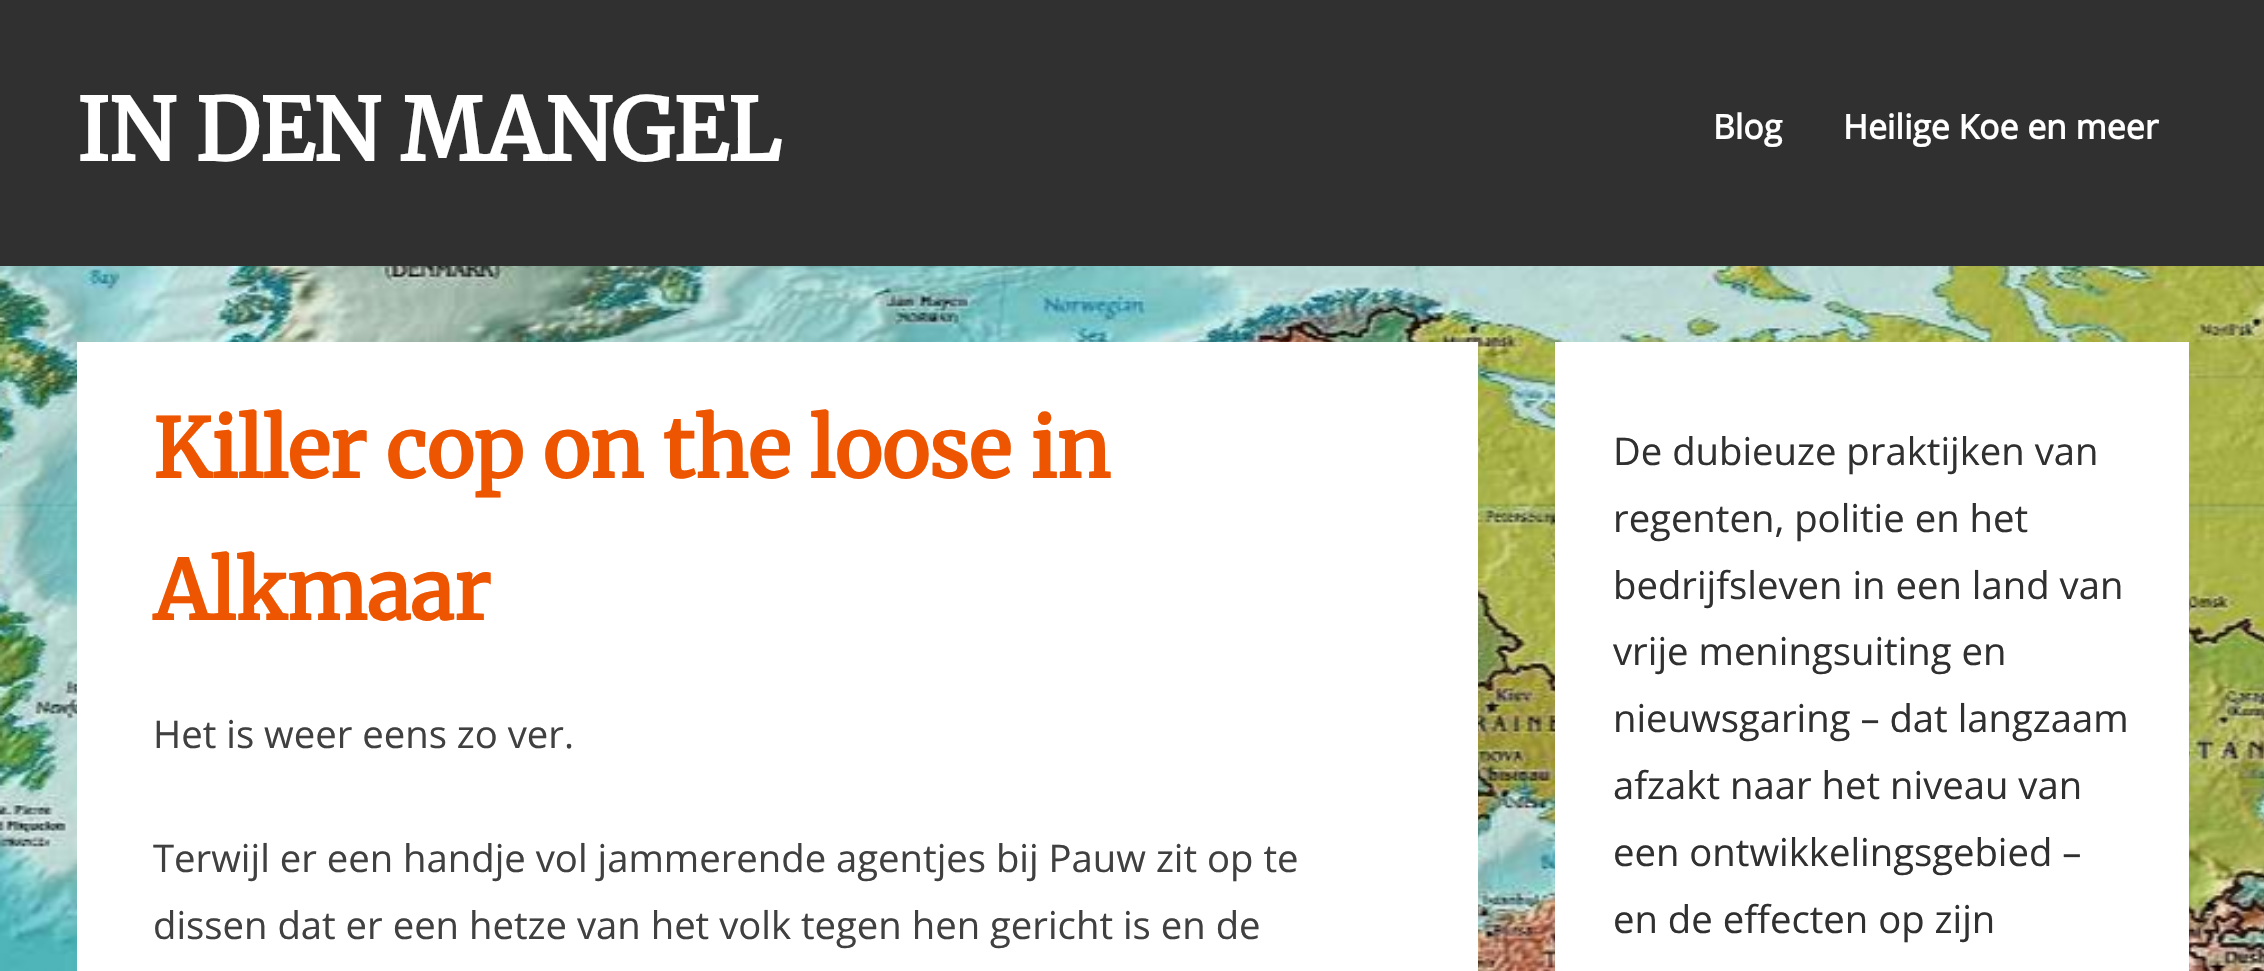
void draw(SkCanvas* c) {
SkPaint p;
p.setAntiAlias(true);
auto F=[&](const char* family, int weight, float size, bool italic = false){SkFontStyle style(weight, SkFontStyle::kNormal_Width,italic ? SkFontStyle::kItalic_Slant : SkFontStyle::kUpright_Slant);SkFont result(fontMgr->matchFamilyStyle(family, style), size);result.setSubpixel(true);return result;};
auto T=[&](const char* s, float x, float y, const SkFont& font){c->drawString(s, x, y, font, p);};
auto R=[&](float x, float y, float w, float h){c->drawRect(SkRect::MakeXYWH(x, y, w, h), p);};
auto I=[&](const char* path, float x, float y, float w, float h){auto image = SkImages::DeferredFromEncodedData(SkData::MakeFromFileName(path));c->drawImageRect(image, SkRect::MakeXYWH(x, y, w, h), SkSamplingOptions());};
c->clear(0xffffffff);
I("1.png",0,266,2264,705);
p.setColor(0xff303030);
R(0,0,2264,266);
auto f1 = F("Merriweather",700,85.5);
p.setColor(0xffffffff);
T("IN DEN MANGEL",77,161,f1);
auto f2 = F("Open Sans",700,33.75);
T("Blog",1713,139,f2);
T("Heilige Koe en meer",1843,139,f2);
R(77,342,1401,629);
auto f3 = F("Merriweather",700,81);
p.setColor(0xffee5500);
T("Killer cop on the loose in",153,478,f3);
T("Alkmaar",153,620,f3);
auto f4 = F("Open Sans",400,38.25);
p.setColor(0xff404040);
T("Het is weer eens zo ver.",153,748,f4);
T("Terwijl er een handje vol jammerende agentjes bij Pauw zit op te",153,872,f4);
T("dissen dat er een hetze van het volk tegen hen gericht is en de",153,939,f4);
p.setColor(0xffffffff);
R(1555,342,634,629);
p.setColor(0xff303030);
T("De dubieuze praktijken van",1613,465,f4);
T("regenten, politie en het",1613,532,f4);
T("bedrijfsleven in een land van",1613,599,f4);
T("vrije meningsuiting en",1613,665,f4);
T("nieuwsgaring – dat langzaam",1613,732,f4);
T("afzakt naar het niveau van",1613,799,f4);
T("een ontwikkelingsgebied –",1613,866,f4);
T("en de effecten op zijn",1613,933,f4);
}
